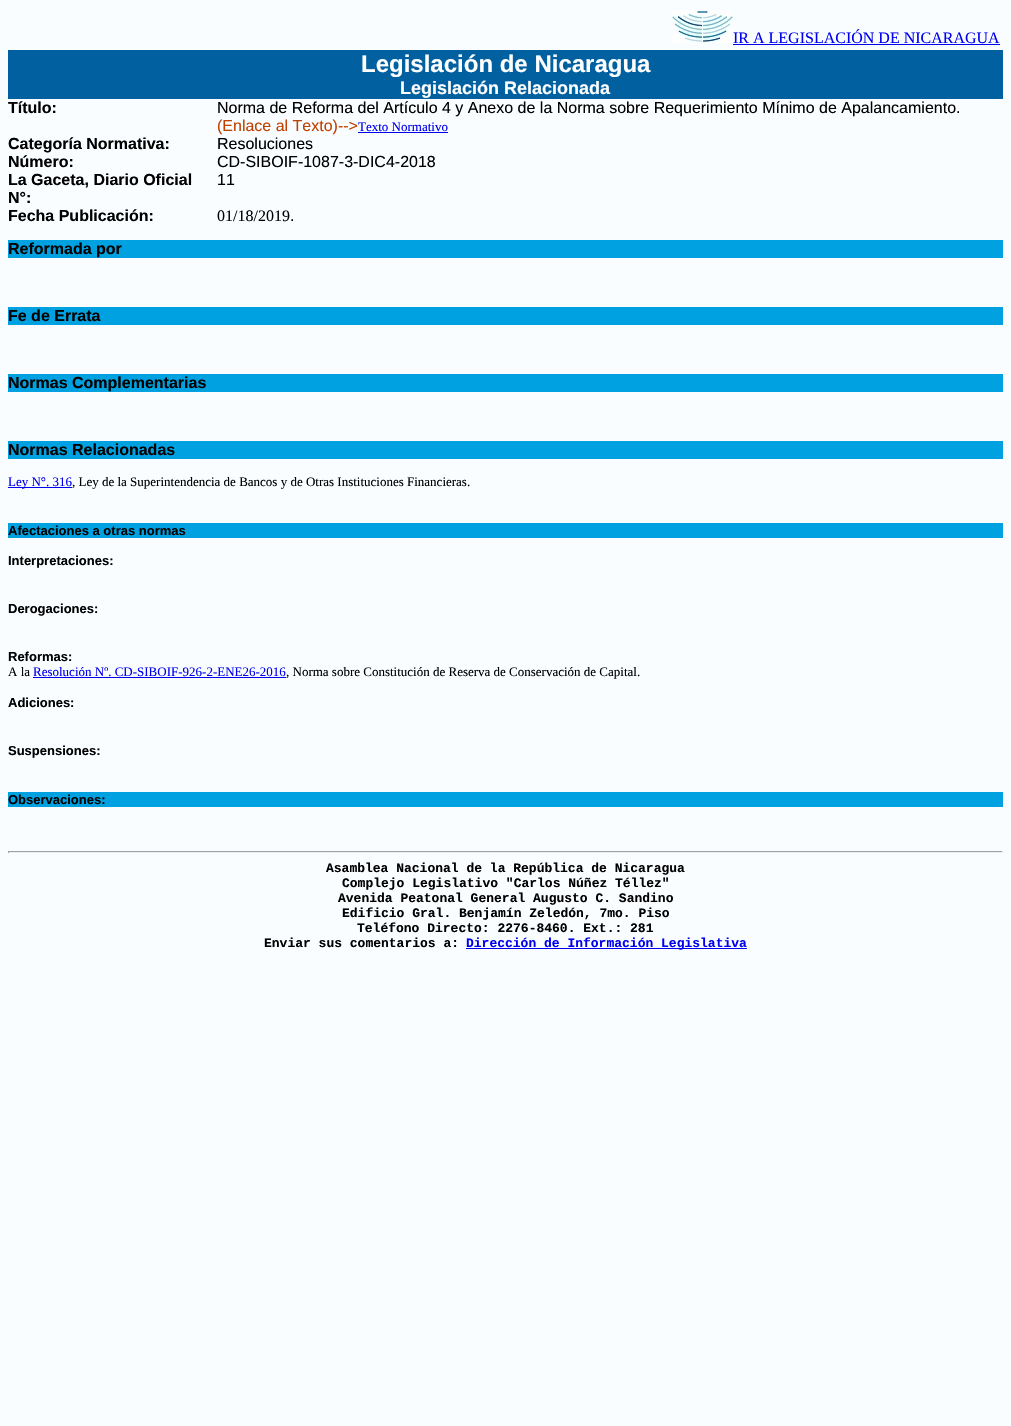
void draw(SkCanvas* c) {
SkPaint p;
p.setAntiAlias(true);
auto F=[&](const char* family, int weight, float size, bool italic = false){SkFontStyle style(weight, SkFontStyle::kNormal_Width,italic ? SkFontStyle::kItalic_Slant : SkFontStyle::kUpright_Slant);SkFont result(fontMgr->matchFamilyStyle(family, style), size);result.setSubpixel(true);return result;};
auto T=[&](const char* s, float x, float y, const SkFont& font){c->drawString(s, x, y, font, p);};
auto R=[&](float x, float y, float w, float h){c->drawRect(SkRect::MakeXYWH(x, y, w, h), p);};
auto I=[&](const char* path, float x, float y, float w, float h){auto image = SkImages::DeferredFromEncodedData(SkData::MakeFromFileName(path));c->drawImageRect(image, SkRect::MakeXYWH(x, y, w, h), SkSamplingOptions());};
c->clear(0xfff9fdff);
I("1.png",672,11,61,32);
auto f1 = F("Liberation Serif",400,16);
p.setColor(0xff0000ee);
T("IR A LEGISLACIÓN DE NICARAGUA",733,43,f1);
R(733,44,267,1);
p.setColor(0xff0060a0);
R(8,50,995,49);
auto f2 = F("Liberation Sans",700,24);
p.setColor(0xffffffff);
T("Legislación de Nicaragua",361,72,f2);
auto f3 = F("Liberation Sans",700,18);
T("Legislación Relacionada",400,94,f3);
auto f4 = F("Liberation Sans",700,16);
p.setColor(0xff000000);
T("Título:",8,113,f4);
auto f5 = F("Liberation Sans",400,16);
T("Norma de Reforma del Artículo 4 y Anexo de la Norma sobre Requerimiento Mínimo de Apalancamiento.",217,113,f5);
p.setColor(0xffbf4100);
T("(Enlace al Texto)-->",217,131,f5);
auto f6 = F("Liberation Serif",400,13);
p.setColor(0xff0000ee);
T("Texto Normativo",358,131,f6);
R(358,132,90,1);
p.setColor(0xff000000);
T("Categoría Normativa:",8,149,f4);
T("Resoluciones",217,149,f5);
T("Número:",8,167,f4);
T("CD-SIBOIF-1087-3-DIC4-2018",217,167,f5);
T("La Gaceta, Diario Oficial",8,185,f4);
T("N°:",8,203,f4);
T("11",217,185,f5);
T("Fecha Publicación:",8,221,f4);
T("01/18/2019",217,221,f1);
T(".",290,221,f5);
p.setColor(0xff00a1e0);
R(8,240,995,18);
p.setColor(0xff000000);
T("Reformada por",8,254,f4);
p.setColor(0xff00a1e0);
R(8,307,995,18);
p.setColor(0xff000000);
T("Fe de Errata",8,321,f4);
p.setColor(0xff00a1e0);
R(8,374,995,18);
p.setColor(0xff000000);
T("Normas Complementarias",8,388,f4);
p.setColor(0xff00a1e0);
R(8,441,995,18);
p.setColor(0xff000000);
T("Normas Relacionadas",8,455,f4);
p.setColor(0xff0000ee);
R(8,487,64,1);
T("Ley N°. 316",8,486,f6);
p.setColor(0xff000000);
T(", Ley de la Superintendencia de Bancos y de Otras Instituciones Financieras.",72,486,f6);
p.setColor(0xff00a1e0);
R(8,523,995,15);
auto f7 = F("Liberation Sans",700,13);
p.setColor(0xff000000);
T("Afectaciones a otras normas",8,535,f7);
T("Interpretaciones:",8,565,f7);
T("Derogaciones:",8,613,f7);
T("Reformas:",8,661,f7);
T("A la",8,676,f6);
p.setColor(0xff0000ee);
T("Resolución Nº. CD-SIBOIF-926-2-ENE26-2016",33,676,f6);
R(33,677,253,1);
p.setColor(0xff000000);
T(", Norma sobre Constitución de Reserva de Conservación de Capital.",286,676,f6);
T("Adiciones:",8,707,f7);
T("Suspensiones:",8,755,f7);
p.setColor(0xff00a1e0);
R(8,792,995,15);
p.setColor(0xff000000);
T("Observaciones:",8,804,f7);
p.setColor(0xff9f9f9f);
R(8,851,995,1);
p.setColor(0xffeeeeee);
R(1002,851,1,2);
R(8,852,995,1);
p.setColor(0xff9f9f9f);
R(8,851,1,2);
auto f8 = F("Liberation Mono",700,13);
p.setColor(0xff000000);
T("Asamblea Nacional de la República de Nicaragua",326,872,f8);
T("Complejo Legislativo \"Carlos Núñez Téllez\"",342,887,f8);
T("Avenida Peatonal General Augusto C. Sandino",338,902,f8);
T("Edificio Gral. Benjamín Zeledón, 7mo. Piso",342,917,f8);
T("Teléfono Directo: 2276-8460. Ext.: 281",357,932,f8);
T("Enviar sus comentarios a:",264,947,f8);
p.setColor(0xff0000ee);
R(466,948,281,1);
T("Dirección de Información Legislativa",466,947,f8);
}
